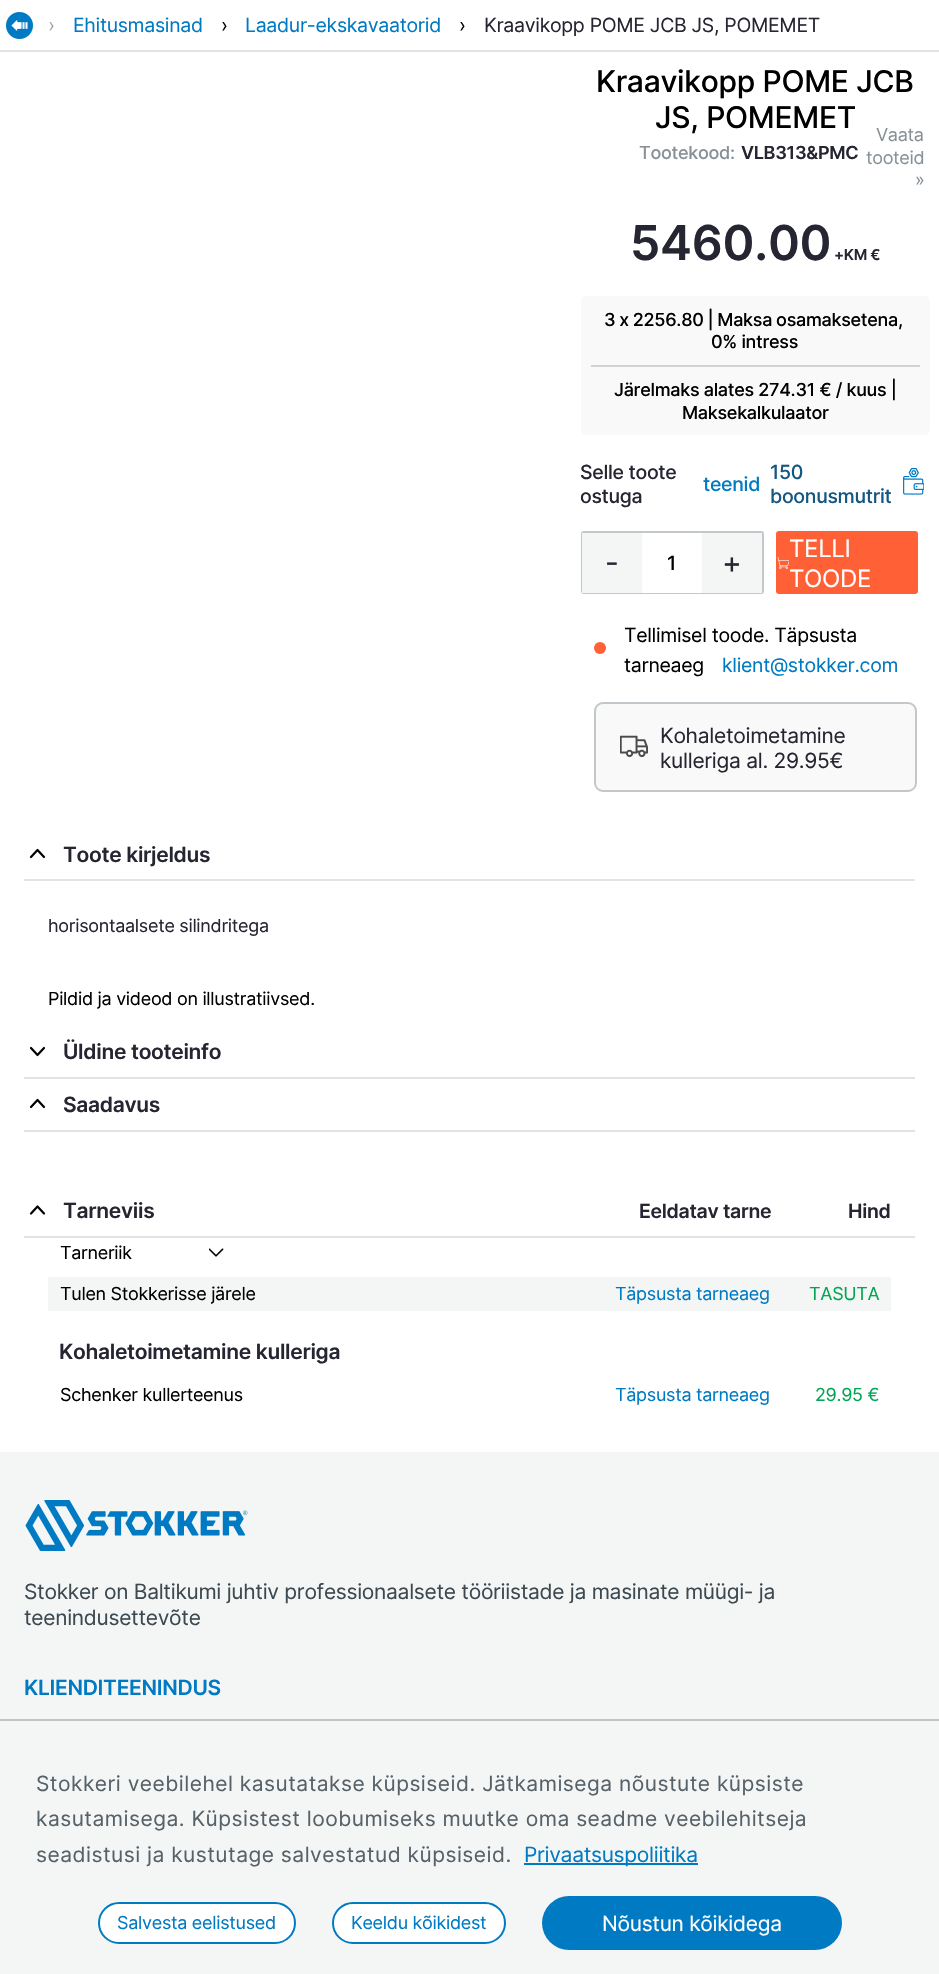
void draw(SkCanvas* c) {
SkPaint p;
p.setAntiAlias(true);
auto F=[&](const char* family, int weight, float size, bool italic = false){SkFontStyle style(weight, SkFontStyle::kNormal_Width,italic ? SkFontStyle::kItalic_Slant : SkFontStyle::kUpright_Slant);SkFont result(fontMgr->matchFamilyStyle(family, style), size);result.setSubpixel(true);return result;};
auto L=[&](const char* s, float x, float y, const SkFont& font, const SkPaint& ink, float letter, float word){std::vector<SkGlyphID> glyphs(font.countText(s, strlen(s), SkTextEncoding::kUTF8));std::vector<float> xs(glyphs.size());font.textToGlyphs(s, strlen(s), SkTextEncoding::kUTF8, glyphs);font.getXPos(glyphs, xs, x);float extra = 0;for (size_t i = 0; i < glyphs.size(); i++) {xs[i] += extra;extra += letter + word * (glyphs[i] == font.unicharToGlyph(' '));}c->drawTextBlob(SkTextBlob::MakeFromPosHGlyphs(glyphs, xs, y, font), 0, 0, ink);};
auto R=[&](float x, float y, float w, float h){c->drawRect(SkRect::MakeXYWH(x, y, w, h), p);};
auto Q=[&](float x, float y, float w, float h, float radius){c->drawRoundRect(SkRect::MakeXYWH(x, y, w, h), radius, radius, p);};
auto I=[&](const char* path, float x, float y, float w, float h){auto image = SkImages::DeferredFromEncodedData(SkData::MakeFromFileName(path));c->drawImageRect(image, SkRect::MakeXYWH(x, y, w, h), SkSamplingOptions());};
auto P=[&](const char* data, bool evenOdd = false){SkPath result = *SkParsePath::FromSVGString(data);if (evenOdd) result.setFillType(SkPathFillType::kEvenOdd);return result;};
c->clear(0xffffffff);
p.setColor(0xffe3e3e3);
R(0,50,939,2);
I("1.png",6,12,27,27);
auto f1 = F("Inter",400,19.5);
p.setColor(0xff000000);
L("›",48,32,f1,p,-.3,0);
p.setColor(0xff007ac2);
L("Ehitusmasinad",73,32,f1,p,-.3,0);
L("Laadur-ekskavaatorid",245,32,f1,p,-.3,0);
p.setColor(0xff262633);
L("Kraavikopp POME JCB JS, POMEMET",484,32,f1,p,-.3,0);
{
const SkColor colors[] = {0x00ffffff,0xffffffff};
const float stops[] = {0,.82};
const SkPoint ends[] = {{73,25}, {33,25}};
p.setShader(SkGradientShader::MakeLinear(ends, colors, stops, 2, SkTileMode::kClamp));
p.setAlpha(255);
}
R(49,22,5,9);
p.setShader(nullptr);
p.setColor(0xff000000);
L("›",221,32,f1,p,-.3,0);
L("›",459,32,f1,p,-.3,0);
auto f2 = F("Inter",500,30);
L("Kraavikopp POME JCB",596,92,f2,p,-.3,0);
L("JS, POMEMET",655,128,f2,p,-.3,0);
auto f3 = F("Inter",500,18);
p.setColor(0xff879197);
L("Tootekood:",639,159,f3,p,-.3,0);
auto f4 = F("Inter",600,18);
p.setColor(0xff262633);
L("VLB313&PMC",741,159,f4,p,-.3,0);
auto f5 = F("Inter",400,18);
p.setColor(0xff879197);
L("Vaata",876,141,f5,p,-.3,0);
L("tooteid",866,164,f5,p,-.3,0);
L("»",915,186,f5,p,-.3,0);
auto f6 = F("Inter",600,48);
p.setColor(0xff262633);
L("5460.00",630,260,f6,p,-.3,0);
auto f7 = F("Inter",600,15);
L("+KM €",834,260,f7,p,-.3,0);
p.setColor(0xfff9f9f9);
Q(581,296,349,139,6);
p.setColor(0xff000000);
L("3 x 2256.80 | Maksa osamaksetena,",604,326,f3,p,-.3,-.5);
L("0% intress",711,348,f3,p,-.3,0);
p.setColor(0xffd2d2d2);
R(591,365,329,2);
p.setColor(0xff000000);
L("Järelmaks alates 274.31 € / kuus |",614,396,f3,p,-.3,0);
L("Maksekalkulaator",682,419,f3,p,-.3,0);
auto f8 = F("Inter",500,19.5);
p.setColor(0xff262633);
L("Selle toote",580,479,f8,p,-.3,0);
L("ostuga",580,503,f8,p,-.3,0);
p.setColor(0xff007ac2);
L("teenid",703,491,f8,p,-.3,0);
p.setColor(0xff135782);
L("150",770,479,f8,p,-.3,0);
L("boonusmutrit",770,503,f8,p,-.3,0);
I("2.png",903,468,21,27);
p.setStroke(true);
p.setStrokeWidth(2);
p.setColor(0xffc2c7cb);
c->drawRoundRect(SkRect::MakeXYWH(582,532,181,61),2,2,p);
p.setStroke(false);
p.setColor(0xfff4f6f6);
R(582,533,60,60);
auto f9 = F("Inter",400,30);
p.setColor(0xff262633);
L("-",605,573,f9,p,-.3,0);
p.setColor(0xffffffff);
R(642,592,60,1);
p.setColor(0xff000000);
L("1",667,570,f8,p,-.3,0);
p.setColor(0xfff4f6f6);
R(702,533,60,60);
p.setColor(0xff262633);
L("+",722,573,f9,p,-.3,0);
p.setColor(0xffff6035);
Q(776,531,142,63,3);
I("3.png",776,557,13,12);
auto f10 = F("Inter",400,24);
p.setColor(0xffffffff);
L("TELLI",789,557,f10,p,-.3,0);
L("TOODE",789,587,f10,p,-.3,0);
p.setColor(0xffff6035);
c->drawCircle(600,648,6,p);
p.setColor(0xff000000);
L("Tellimisel toode. Täpsusta",624,642,f1,p,-.3,0);
L("tarneaeg",624,672,f1,p,-.3,0);
p.setColor(0xff007ac2);
L("klient@stokker.com",722,672,f1,p,-.3,0);
p.setColor(0xfff9f9f9);
c->drawRoundRect(SkRect::MakeXYWH(595,703,321,88),8,8,p);
p.setStroke(true);
p.setColor(0xffc2c7cb);
c->drawRoundRect(SkRect::MakeXYWH(595,703,321,88),8,8,p);
I("4.png",620,735,28,23);
auto f11 = F("Inter",400,21);
p.setStroke(false);
p.setColor(0xff262633);
L("Kohaletoimetamine",660,743,f11,p,-.3,0);
L("kulleriga al. 29.95€",660,768,f11,p,-.3,0);
p.setColor(0xffe3e3e3);
R(24,879,891,2);
p.setStroke(true);
p.setStrokeWidth(2.2);
p.setStrokeCap(SkPaint::kRound_Cap);
p.setStrokeJoin(SkPaint::kRound_Join);
p.setColor(0xff000000);
c->drawPath(P("M44 857l-6.5-7l-6.5 7"),p);
auto f12 = F("Inter",600,21);
p.setStroke(false);
p.setColor(0xff262633);
L("Toote kirjeldus",63,862,f12,p,-.3,0);
L("horisontaalsete silindritega",48,932,f5,p,-.3,0);
p.setColor(0xff000000);
L("Pildid ja videod on illustratiivsed.",48,1005,f5,p,-.3,0);
p.setColor(0xffe3e3e3);
R(24,1077,891,2);
p.setStroke(true);
p.setColor(0xff000000);
c->drawPath(P("M31 1048l6.5 7l6.5-7"),p);
p.setStroke(false);
p.setColor(0xff262633);
L("Üldine tooteinfo",63,1059,f12,p,-.3,0);
p.setColor(0xffe3e3e3);
R(24,1130,891,2);
p.setStroke(true);
p.setColor(0xff000000);
c->drawPath(P("M44 1107l-6.5-7l-6.5 7"),p);
p.setStroke(false);
p.setColor(0xff262633);
L("Saadavus",63,1112,f12,p,-.3,0);
p.setColor(0xffe3e3e3);
R(24,1236,891,2);
p.setStroke(true);
p.setColor(0xff000000);
c->drawPath(P("M44 1213.5l-6.5-7l-6.5 7"),p);
p.setStroke(false);
p.setColor(0xff262633);
L("Tarneviis",63,1218,f12,p,-.3,0);
auto f13 = F("Inter",600,19.5);
L("Eeldatav tarne",639,1218,f13,p,-.3,0);
L("Hind",848,1218,f13,p,-.3,0);
p.setColor(0xff000000);
L("Tarneriik",60,1259,f5,p,-.3,0);
I("5.png",209,1248,15,9);
p.setColor(0xfff4f6f6);
R(48,1277,843,34);
p.setColor(0xff000000);
L("Tulen Stokkerisse järele",60,1300,f5,p,-.3,0);
p.setColor(0xff007ac2);
L("Täpsusta tarneaeg",615,1300,f5,p,-.3,0);
p.setColor(0xff00a651);
L("TASUTA",809,1300,f5,p,-.3,0);
p.setColor(0xff262633);
L("Kohaletoimetamine kulleriga",59,1359,f12,p,-.3,0);
p.setColor(0xff000000);
L("Schenker kullerteenus",60,1401,f5,p,-.3,0);
p.setColor(0xff007ac2);
L("Täpsusta tarneaeg",615,1401,f5,p,-.3,0);
p.setColor(0xff00a651);
L("29.95 €",815,1401,f5,p,-.3,0);
p.setColor(0xfff4f6f6);
R(0,1452,939,267);
I("6.png",25,1500,223,51);
p.setColor(0xff3d4950);
L("Stokker on Baltikumi juhtiv professionaalsete tööriistade ja masinate müügi- ja",24,1599,f11,p,-.3,0);
L("teenindusettevõte",24,1625,f11,p,-.3,0);
p.setColor(0xff007ac2);
L("KLIENDITEENINDUS",24,1695,f12,p,-.3,0);
p.setColor(0xfff4f6f6);
R(0,1721,939,253);
p.setColor(0xffc3c5c5);
R(0,1719,939,2);
p.setColor(0xff566168);
L("Stokkeri veebilehel kasutatakse küpsiseid. Jätkamisega nõustute küpsiste",36,1791,f11,p,.48,0);
L("kasutamisega. Küpsistest loobumiseks muutke oma seadme veebilehitseja",36,1826,f11,p,.48,0);
L("seadistusi ja kustutage salvestatud küpsiseid.",36,1862,f11,p,.48,0);
p.setColor(0xff007ac2);
R(524,1863,174,2);
L("Privaatsuspoliitika",524,1862,f11,p,-.3,0);
p.setColor(0xffffffff);
c->drawRoundRect(SkRect::MakeXYWH(99,1903,196,40),20,20,p);
p.setStroke(true);
p.setStrokeWidth(2);
p.setStrokeCap(SkPaint::kButt_Cap);
p.setStrokeJoin(SkPaint::kMiter_Join);
p.setColor(0xff007ac2);
c->drawRoundRect(SkRect::MakeXYWH(99,1903,196,40),20,20,p);
p.setStroke(false);
L("Salvesta eelistused",117,1929,f5,p,-.3,0);
p.setColor(0xffffffff);
c->drawRoundRect(SkRect::MakeXYWH(333,1903,172,40),20,20,p);
p.setStroke(true);
p.setColor(0xff007ac2);
c->drawRoundRect(SkRect::MakeXYWH(333,1903,172,40),20,20,p);
p.setStroke(false);
L("Keeldu kõikidest",351,1929,f5,p,-.3,0);
Q(542,1896,300,54,27);
p.setColor(0xffffffff);
L("Nõustun kõikidega",602,1931,f11,p,-.3,0);
}
